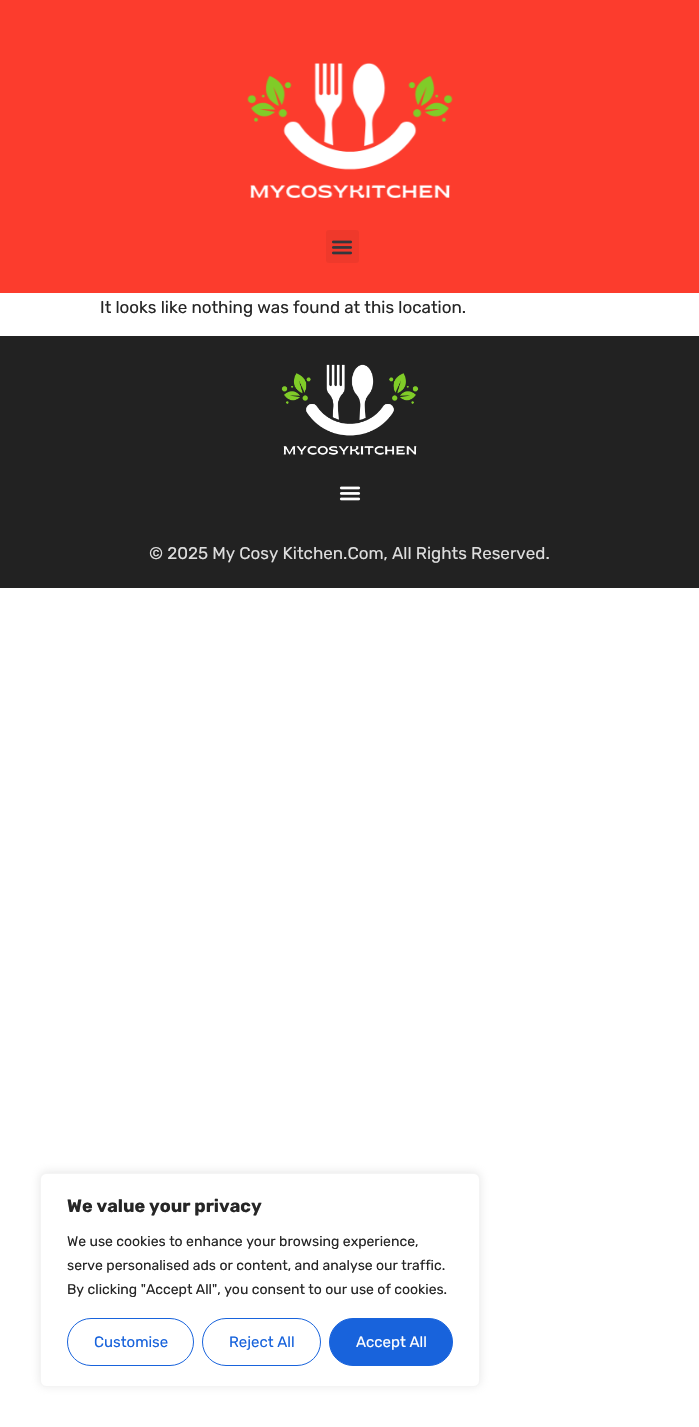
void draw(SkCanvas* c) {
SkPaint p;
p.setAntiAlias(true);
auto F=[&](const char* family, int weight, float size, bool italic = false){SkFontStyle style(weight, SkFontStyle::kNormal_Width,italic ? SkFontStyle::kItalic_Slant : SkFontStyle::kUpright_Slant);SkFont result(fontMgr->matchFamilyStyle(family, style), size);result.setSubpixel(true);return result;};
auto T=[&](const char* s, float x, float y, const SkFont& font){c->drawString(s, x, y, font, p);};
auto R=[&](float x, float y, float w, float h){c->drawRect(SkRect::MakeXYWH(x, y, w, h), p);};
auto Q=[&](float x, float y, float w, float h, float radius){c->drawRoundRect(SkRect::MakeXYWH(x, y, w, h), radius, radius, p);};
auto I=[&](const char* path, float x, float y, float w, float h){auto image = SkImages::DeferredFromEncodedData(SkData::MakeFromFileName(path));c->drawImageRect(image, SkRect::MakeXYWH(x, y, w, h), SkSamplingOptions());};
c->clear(0xffffffff);
p.setColor(0xfffc3c2d);
R(0,0,699,293);
I("1.png",247,63,206,135);
p.setColor(0xffef392b);
Q(326,230,33,33,3);
I("2.png",331,240,22,15);
auto f1 = F("Rubik",400,17);
p.setColor(0xff262626);
T("It looks like nothing was found at this location.",100,313,f1);
p.setColor(0xff222222);
R(0,336,699,252);
I("3.png",281,364,138,91);
I("4.png",339,486,22,15);
p.setColor(0xffdedede);
T("© 2025 My Cosy Kitchen.Com, All Rights Reserved.",149,559,f1);
p.setColor(0x4dacabab);
p.setMaskFilter(SkMaskFilter::MakeBlur(kNormal_SkBlurStyle, 5));
c->drawRoundRect(SkRect::MakeXYWH(40,1172,440,214),6,6,p);
p.setMaskFilter(nullptr);
p.setColor(0xffffffff);
c->drawRoundRect(SkRect::MakeXYWH(40.5,1173.5,439,213),5.5,5.5,p);
p.setStroke(true);
p.setStrokeWidth(1);
p.setColor(0xfff4f4f4);
c->drawRoundRect(SkRect::MakeXYWH(40.5,1173.5,439,213),5.5,5.5,p);
auto f2 = F("Rubik",700,18);
p.setStroke(false);
p.setColor(0xff262626);
T("We value your privacy",67,1212,f2);
auto f3 = F("Rubik",400,14);
T("We use cookies to enhance your browsing experience,",67,1246,f3);
T("serve personalised ads or content, and analyse our traffic.",67,1270,f3);
T("By clicking \"Accept All\", you consent to our use of cookies.",67,1294,f3);
p.setStroke(true);
p.setColor(0xff1863dc);
c->drawRoundRect(SkRect::MakeXYWH(67.5,1318.5,126,47),23.5,23.5,p);
auto f4 = F("Rubik",400,15);
p.setStroke(false);
T("Customise",94,1347,f4);
p.setStroke(true);
c->drawRoundRect(SkRect::MakeXYWH(202.5,1318.5,118,47),23.5,23.5,p);
p.setStroke(false);
T("Reject All",229,1347,f4);
c->drawRoundRect(SkRect::MakeXYWH(329.5,1318.5,123,47),23.5,23.5,p);
p.setStroke(true);
c->drawRoundRect(SkRect::MakeXYWH(329.5,1318.5,123,47),23.5,23.5,p);
p.setStroke(false);
p.setColor(0xffffffff);
T("Accept All",356,1347,f4);
}
